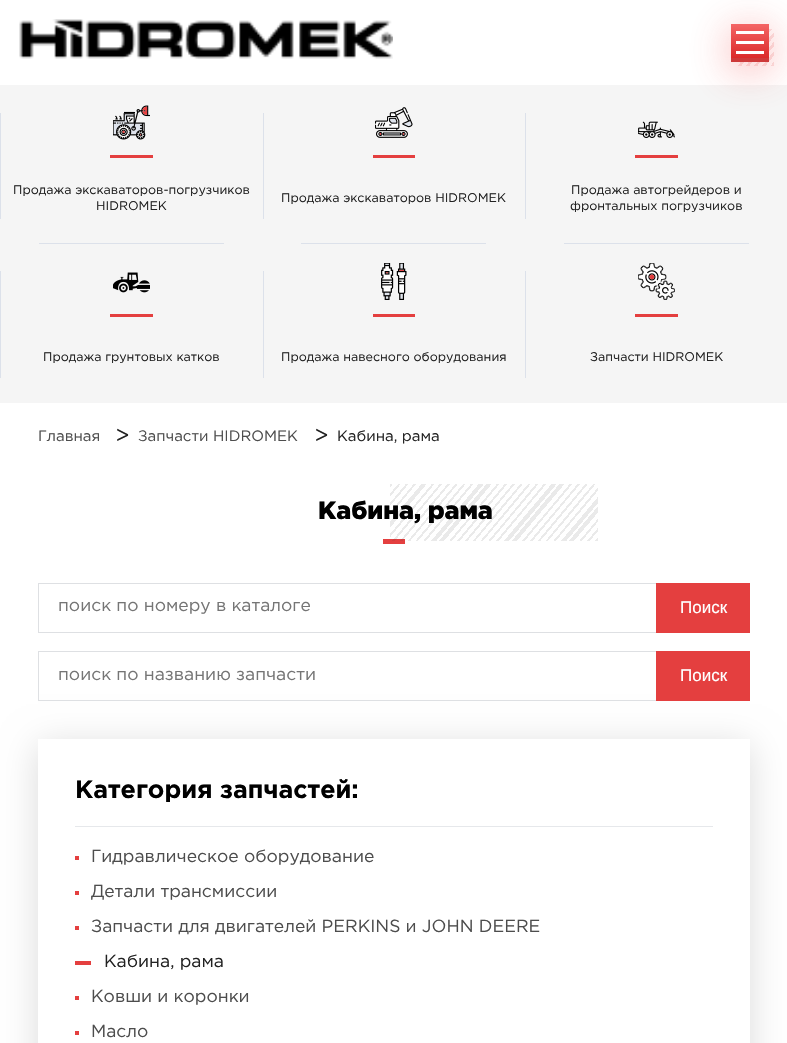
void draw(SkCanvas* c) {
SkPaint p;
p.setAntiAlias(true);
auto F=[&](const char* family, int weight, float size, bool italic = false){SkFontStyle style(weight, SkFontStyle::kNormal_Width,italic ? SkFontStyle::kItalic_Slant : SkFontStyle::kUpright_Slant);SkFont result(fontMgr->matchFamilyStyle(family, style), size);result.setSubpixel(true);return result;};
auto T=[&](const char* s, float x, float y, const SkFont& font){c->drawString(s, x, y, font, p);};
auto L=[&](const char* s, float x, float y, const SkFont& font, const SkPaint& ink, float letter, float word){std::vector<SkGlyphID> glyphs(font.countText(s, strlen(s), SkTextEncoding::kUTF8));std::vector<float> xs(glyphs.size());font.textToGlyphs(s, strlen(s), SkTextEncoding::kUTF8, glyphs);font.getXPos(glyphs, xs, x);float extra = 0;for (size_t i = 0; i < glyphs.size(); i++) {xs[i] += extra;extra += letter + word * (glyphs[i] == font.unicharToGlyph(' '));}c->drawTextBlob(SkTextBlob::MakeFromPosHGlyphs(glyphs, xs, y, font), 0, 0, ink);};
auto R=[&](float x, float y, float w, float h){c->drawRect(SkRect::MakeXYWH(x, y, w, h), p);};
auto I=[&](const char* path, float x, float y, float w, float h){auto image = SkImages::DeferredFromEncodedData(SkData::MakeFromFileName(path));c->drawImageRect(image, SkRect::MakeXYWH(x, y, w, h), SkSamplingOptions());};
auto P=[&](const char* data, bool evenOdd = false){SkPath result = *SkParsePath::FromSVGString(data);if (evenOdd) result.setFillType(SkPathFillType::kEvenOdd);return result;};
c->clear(0xffffffff);
I("1.png",19,19,374,40);
{
const SkColor colors[] = {0xfffbe2e2,0xfffbe2e2,0xffffffff,0xffffffff,0xfffbe2e2,0xfffbe2e2,0xffffffff,0xffffffff,0xfffbe2e2,0xfffbe2e2,0xffffffff,0xffffffff,0xfffbe2e2,0xfffbe2e2,0xffffffff,0xffffffff,0xfffbe2e2,0xfffbe2e2,0xffffffff,0xffffffff,0xfffbe2e2,0xfffbe2e2,0xffffffff,0xffffffff,0xfffbe2e2,0xfffbe2e2,0xffffffff,0xffffffff,0xfffbe2e2,0xfffbe2e2,0xffffffff,0xffffffff,0xfffbe2e2,0xfffbe2e2,0xffffffff,0xffffffff};
const float stops[] = {0,.04,.04,.11,.11,.16,.16,.22,.22,.27,.27,.33,.33,.38,.38,.44,.44,.49,.49,.56,.56,.6,.6,.67,.67,.71,.71,.78,.78,.82,.82,.89,.89,.93,.93,1};
const SkPoint ends[] = {{775,64}, {732,28}};
p.setShader(SkGradientShader::MakeLinear(ends, colors, stops, 36, SkTileMode::kClamp));
p.setAlpha(255);
}
R(736,29,38,37);
p.setShader(nullptr);
p.setColor(0xfff5f5f5);
R(0,85,787,318);
p.setColor(0x69f13939);
p.setMaskFilter(SkMaskFilter::MakeBlur(kNormal_SkBlurStyle, 21));
c->drawRect(SkRect::MakeXYWH(731,31,38,38),p);
p.setMaskFilter(nullptr);
{
const SkColor colors[] = {0xffd92525,0xfff46565};
const float stops[] = {0,1};
const SkPoint ends[] = {{750,61}, {750,24}};
p.setShader(SkGradientShader::MakeLinear(ends, colors, stops, 2, SkTileMode::kClamp));
p.setAlpha(255);
}
R(731,24,38,34);
p.setShader(nullptr);
p.setColor(0xffce3a3a);
R(731,58,38,4);
p.setColor(0xffffffff);
R(736,31,28,3);
R(736,41,28,3);
R(736,51,28,3);
p.setColor(0xffdce1ea);
R(0,113,1,106);
I("2.png",113,105,37,35);
p.setColor(0xffe43f3f);
R(110,155,43,3);
p.setColor(0xffdce1ea);
R(263,113,1,106);
auto f1 = F("Gotham",400,12.5);
p.setColor(0xff222222);
T("Продажа экскаваторов-погрузчиков",13,194,f1);
T("HIDROMEK",96,210,f1);
I("3.png",375,107,38,31);
p.setColor(0xffe43f3f);
R(373,155,42,3);
p.setColor(0xffdce1ea);
R(525,113,1,106);
p.setColor(0xff222222);
T("Продажа экскаваторов HIDROMEK",281,202,f1);
I("4.png",638,121,37,17);
p.setColor(0xffe43f3f);
R(635,155,43,3);
p.setColor(0xff222222);
T("Продажа автогрейдеров и",571,194,f1);
T("фронтальных погрузчиков",570,210,f1);
p.setColor(0xffdce1ea);
R(0,271,1,107);
R(39,243,185,1);
I("5.png",113,272,37,21);
p.setColor(0xffe43f3f);
R(110,314,43,3);
p.setColor(0xffdce1ea);
R(263,271,1,107);
p.setColor(0xff222222);
T("Продажа грунтовых катков",43,361,f1);
p.setColor(0xffdce1ea);
R(301,243,185,1);
I("6.png",381,263,26,37);
p.setColor(0xffe43f3f);
R(373,314,42,3);
p.setColor(0xffdce1ea);
R(525,271,1,107);
p.setColor(0xff222222);
T("Продажа навесного оборудования",281,361,f1);
p.setColor(0xffdce1ea);
R(564,243,185,1);
I("7.png",638,263,37,37);
p.setColor(0xffe43f3f);
R(635,314,43,3);
p.setColor(0xff222222);
T("Запчасти HIDROMEK",590,361,f1);
auto f2 = F("Gotham",400,15);
p.setColor(0xff4d4d4d);
T("Главная",38,441,f2);
auto f3 = F("Gotham",400,23);
p.setColor(0xff222222);
L(">",115,443,f3,p,-7,0);
p.setColor(0xff4d4d4d);
T("Запчасти HIDROMEK",138,441,f2);
p.setColor(0xff222222);
L(">",314,443,f3,p,-7,0);
T("Кабина, рама",337,441,f2);
p.setColor(0xffe43f3f);
R(383,539,22,5);
{
const SkColor colors[] = {0x1a333333,0x1a333333,0x00333333,0x00333333,0x1a333333,0x1a333333,0x00333333,0x00333333,0x1a333333,0x1a333333,0x00333333,0x00333333,0x1a333333,0x1a333333,0x00333333,0x00333333,0x1a333333,0x1a333333,0x00333333,0x00333333,0x1a333333,0x1a333333,0x00333333,0x00333333,0x1a333333,0x1a333333,0x00333333,0x00333333,0x1a333333,0x1a333333,0x00333333,0x00333333,0x1a333333,0x1a333333,0x00333333,0x00333333,0x1a333333,0x1a333333,0x00333333,0x00333333,0x1a333333,0x1a333333,0x00333333,0x00333333,0x1a333333,0x1a333333,0x00333333,0x00333333,0x1a333333,0x1a333333,0x00333333,0x00333333,0x1a333333,0x1a333333,0x00333333,0x00333333,0x1a333333,0x1a333333,0x00333333,0x00333333,0x1a333333,0x1a333333,0x00333333,0x00333333,0x1a333333,0x1a333333,0x00333333,0x00333333,0x1a333333,0x1a333333,0x00333333,0x00333333,0x1a333333,0x1a333333,0x00333333,0x00333333,0x1a333333,0x1a333333,0x00333333,0x00333333,0x1a333333,0x1a333333,0x00333333,0x00333333,0x1a333333,0x1a333333,0x00333333,0x00333333,0x1a333333,0x1a333333,0x00333333,0x00333333,0x1a333333,0x1a333333,0x00333333,0x00333333,0x1a333333,0x1a333333,0x00333333,0x00333333,0x1a333333,0x1a333333,0x00333333,0x00333333,0x1a333333,0x1a333333,0x00333333,0x00333333,0x1a333333,0x1a333333,0x00333333,0x00333333,0x1a333333,0x1a333333,0x00333333,0x00333333,0x1a333333,0x1a333333,0x00333333,0x00333333,0x1a333333,0x1a333333,0x00333333,0x00333333,0x1a333333,0x1a333333,0x00333333,0x00000000};
const float stops[] = {0,.01,.01,.03,.03,.04,.04,.06,.06,.07,.07,.09,.09,.11,.11,.12,.12,.14,.14,.16,.16,.17,.17,.19,.19,.2,.2,.22,.22,.23,.23,.25,.25,.26,.26,.28,.28,.29,.29,.31,.31,.33,.33,.34,.34,.36,.36,.38,.38,.39,.39,.41,.41,.42,.42,.44,.44,.45,.45,.47,.47,.48,.48,.5,.5,.51,.51,.53,.53,.54,.54,.56,.56,.57,.57,.59,.59,.61,.61,.62,.62,.64,.64,.66,.66,.67,.67,.69,.69,.7,.7,.72,.72,.73,.73,.75,.75,.76,.76,.78,.78,.79,.79,.81,.81,.82,.82,.84,.84,.86,.86,.88,.88,.89,.89,.91,.91,.92,.92,.94,.94,.95,.95,.97,.97,.98,.98,1};
const SkPoint ends[] = {{569,575}, {416,447}};
p.setShader(SkGradientShader::MakeLinear(ends, colors, stops, 128, SkTileMode::kClamp));
p.setAlpha(255);
}
R(390,484,208,57);
auto f4 = F("Gotham",900,25);
p.setShader(nullptr);
p.setColor(0xff000000);
L("Кабина, рама",318,519,f4,p,-.1,0);
p.setStroke(true);
p.setStrokeWidth(1);
p.setColor(0xffdee0e3);
c->drawRect(SkRect::MakeXYWH(38.5,583.5,711,49),p);
auto f5 = F("Gotham",400,17.5);
p.setStroke(false);
p.setColor(0xff757575);
T("поиск по номеру в каталоге",58,611,f5);
p.setColor(0xffe43f3f);
R(656,583,94,50);
auto f6 = F("Liberation Sans",400,17);
p.setColor(0xffffffff);
T("Поиск",680,613,f6);
c->save();
c->clipPath(P("M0 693h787v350h-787zm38 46h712v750h-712z",true),true);
p.setColor(0x24000000);
p.setMaskFilter(SkMaskFilter::MakeBlur(kNormal_SkBlurStyle, 17));
c->drawRect(SkRect::MakeXYWH(38,745,712,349),p);
p.setMaskFilter(nullptr);
c->restore();
p.setStroke(true);
p.setColor(0xffdee0e3);
c->drawRect(SkRect::MakeXYWH(38.5,651.5,711,49),p);
p.setStroke(false);
p.setColor(0xff757575);
T("поиск по названию запчасти",58,680,f5);
p.setColor(0xffe43f3f);
R(656,651,94,50);
p.setColor(0xffffffff);
T("Поиск",680,681,f6);
p.setColor(0xffe6e8eb);
R(75,826,638,1);
auto f7 = F("Gotham",700,25);
p.setColor(0xff000000);
T("Категория запчастей:",75,798,f7);
p.setColor(0xffe43f3f);
R(75,856,4,4);
p.setColor(0xff4d4d4d);
T("Гидравлическое оборудование",91,862,f5);
p.setColor(0xffe43f3f);
R(75,891,4,4);
p.setColor(0xff4d4d4d);
T("Детали трансмиссии",91,897,f5);
p.setColor(0xffe43f3f);
R(75,926,4,4);
p.setColor(0xff4d4d4d);
T("Запчасти для двигателей PERKINS и JOHN DEERE",91,932,f5);
p.setColor(0xffe43f3f);
R(75,961,16,4);
p.setColor(0xff222222);
T("Кабина, рама",104,967,f5);
p.setColor(0xffe43f3f);
R(75,996,4,4);
p.setColor(0xff4d4d4d);
T("Ковши и коронки",91,1002,f5);
p.setColor(0xffe43f3f);
R(75,1031,4,4);
p.setColor(0xff4d4d4d);
T("Масло",91,1037,f5);
}
